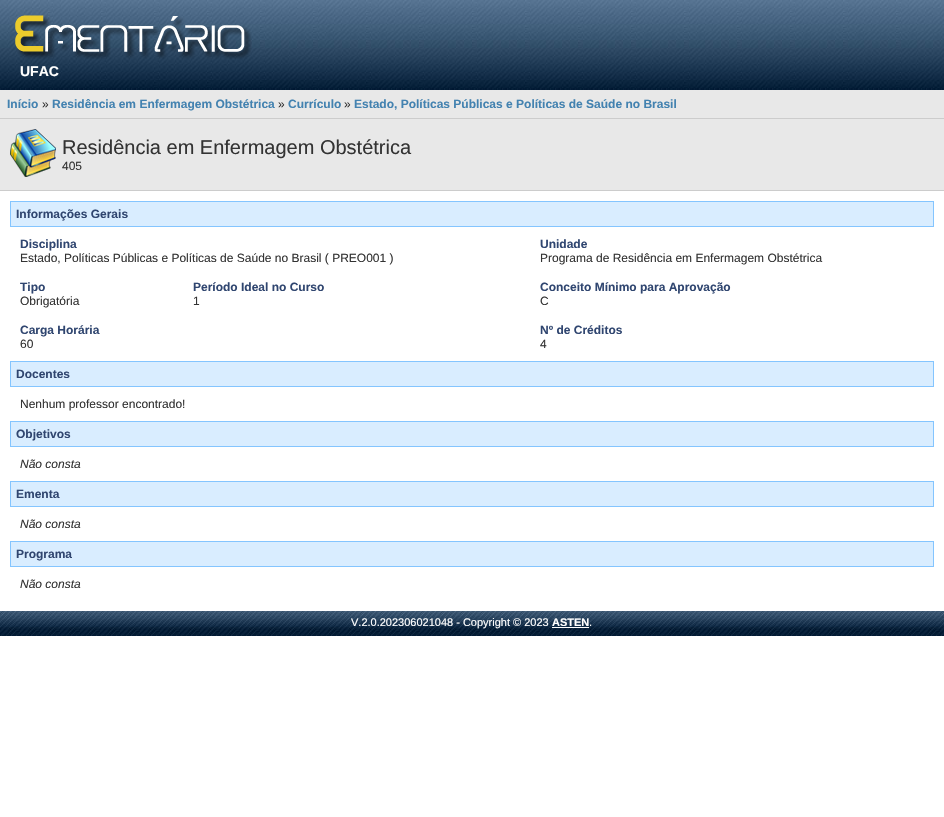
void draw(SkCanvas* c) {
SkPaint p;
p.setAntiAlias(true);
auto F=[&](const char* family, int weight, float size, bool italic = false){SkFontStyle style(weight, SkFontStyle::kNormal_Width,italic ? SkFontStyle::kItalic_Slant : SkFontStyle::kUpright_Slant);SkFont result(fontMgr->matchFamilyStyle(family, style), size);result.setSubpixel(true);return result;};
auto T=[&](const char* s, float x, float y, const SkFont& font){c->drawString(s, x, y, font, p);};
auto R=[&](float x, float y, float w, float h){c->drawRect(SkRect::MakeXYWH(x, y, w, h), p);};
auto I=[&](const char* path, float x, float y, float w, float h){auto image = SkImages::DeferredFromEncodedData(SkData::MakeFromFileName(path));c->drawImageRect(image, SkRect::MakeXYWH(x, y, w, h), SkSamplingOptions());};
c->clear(0xffffffff);
I("1.png",0,0,944,90);
I("2.png",15,15,237,44);
auto f1 = F("Liberation Sans",700,14);
p.setColor(0xffffffff);
T("UFAC",20,76,f1);
p.setColor(0xffe8e8e8);
R(0,90,944,28);
p.setColor(0xffcccccc);
R(0,118,944,1);
auto f2 = F("Liberation Sans",700,12);
p.setColor(0xff4382b0);
T("Início",7,108,f2);
auto f3 = F("Liberation Sans",400,12);
p.setColor(0xff333333);
T("»",42,108,f3);
p.setColor(0xff4382b0);
T("Residência em Enfermagem Obstétrica",52,108,f2);
p.setColor(0xff333333);
T("»",278,108,f3);
p.setColor(0xff4382b0);
T("Currículo",288,108,f2);
p.setColor(0xff333333);
T("»",344,108,f3);
p.setColor(0xff4382b0);
T("Estado, Políticas Públicas e Políticas de Saúde no Brasil",354,108,f2);
p.setColor(0xffe8e8e8);
R(0,119,944,71);
p.setColor(0xffcccccc);
R(0,190,944,1);
I("3.png",10,129,46,48);
auto f4 = F("Liberation Sans",400,20);
p.setColor(0xff333333);
T("Residência em Enfermagem Obstétrica",62,154,f4);
T("405",62,170,f3);
p.setColor(0xffd9edff);
c->drawRect(SkRect::MakeXYWH(10.5,201.5,923,25),p);
p.setStroke(true);
p.setStrokeWidth(1);
p.setColor(0xff84c5ff);
c->drawRect(SkRect::MakeXYWH(10.5,201.5,923,25),p);
p.setStroke(false);
p.setColor(0xff304670);
T("Informações Gerais",16,218,f2);
T("Disciplina",20,248,f2);
p.setColor(0xff333333);
T("Estado, Políticas Públicas e Políticas de Saúde no Brasil ( PREO001 )",20,262,f3);
p.setColor(0xff304670);
T("Unidade",540,248,f2);
p.setColor(0xff333333);
T("Programa de Residência em Enfermagem Obstétrica",540,262,f3);
p.setColor(0xff304670);
T("Tipo",20,291,f2);
p.setColor(0xff333333);
T("Obrigatória",20,305,f3);
p.setColor(0xff304670);
T("Período Ideal no Curso",193,291,f2);
p.setColor(0xff333333);
T("1",193,305,f3);
p.setColor(0xff304670);
T("Conceito Mínimo para Aprovação",540,291,f2);
p.setColor(0xff333333);
T("C",540,305,f3);
p.setColor(0xff304670);
T("Carga Horária",20,334,f2);
p.setColor(0xff333333);
T("60",20,348,f3);
p.setColor(0xff304670);
T("Nº de Créditos",540,334,f2);
p.setColor(0xff333333);
T("4",540,348,f3);
p.setColor(0xffd9edff);
c->drawRect(SkRect::MakeXYWH(10.5,361.5,923,25),p);
p.setStroke(true);
p.setColor(0xff84c5ff);
c->drawRect(SkRect::MakeXYWH(10.5,361.5,923,25),p);
p.setStroke(false);
p.setColor(0xff304670);
T("Docentes",16,378,f2);
p.setColor(0xff333333);
T("Nenhum professor encontrado!",20,408,f3);
p.setColor(0xffd9edff);
c->drawRect(SkRect::MakeXYWH(10.5,421.5,923,25),p);
p.setStroke(true);
p.setColor(0xff84c5ff);
c->drawRect(SkRect::MakeXYWH(10.5,421.5,923,25),p);
p.setStroke(false);
p.setColor(0xff304670);
T("Objetivos",16,438,f2);
auto f5 = F("Liberation Sans",400,12,true);
p.setColor(0xff333333);
T("Não consta",20,468,f5);
p.setColor(0xffd9edff);
c->drawRect(SkRect::MakeXYWH(10.5,481.5,923,25),p);
p.setStroke(true);
p.setColor(0xff84c5ff);
c->drawRect(SkRect::MakeXYWH(10.5,481.5,923,25),p);
p.setStroke(false);
p.setColor(0xff304670);
T("Ementa",16,498,f2);
p.setColor(0xff333333);
T("Não consta",20,528,f5);
p.setColor(0xffd9edff);
c->drawRect(SkRect::MakeXYWH(10.5,541.5,923,25),p);
p.setStroke(true);
p.setColor(0xff84c5ff);
c->drawRect(SkRect::MakeXYWH(10.5,541.5,923,25),p);
p.setStroke(false);
p.setColor(0xff304670);
T("Programa",16,558,f2);
p.setColor(0xff333333);
T("Não consta",20,588,f5);
I("4.png",0,611,944,25);
auto f6 = F("Liberation Sans",400,11);
p.setColor(0xffffffff);
T("V.2.0.202306021048 - Copyright © 2023",351,626,f6);
auto f7 = F("Liberation Sans",700,11);
T("ASTEN",552,626,f7);
R(552,627,37,1);
T(".",589,626,f6);
}
